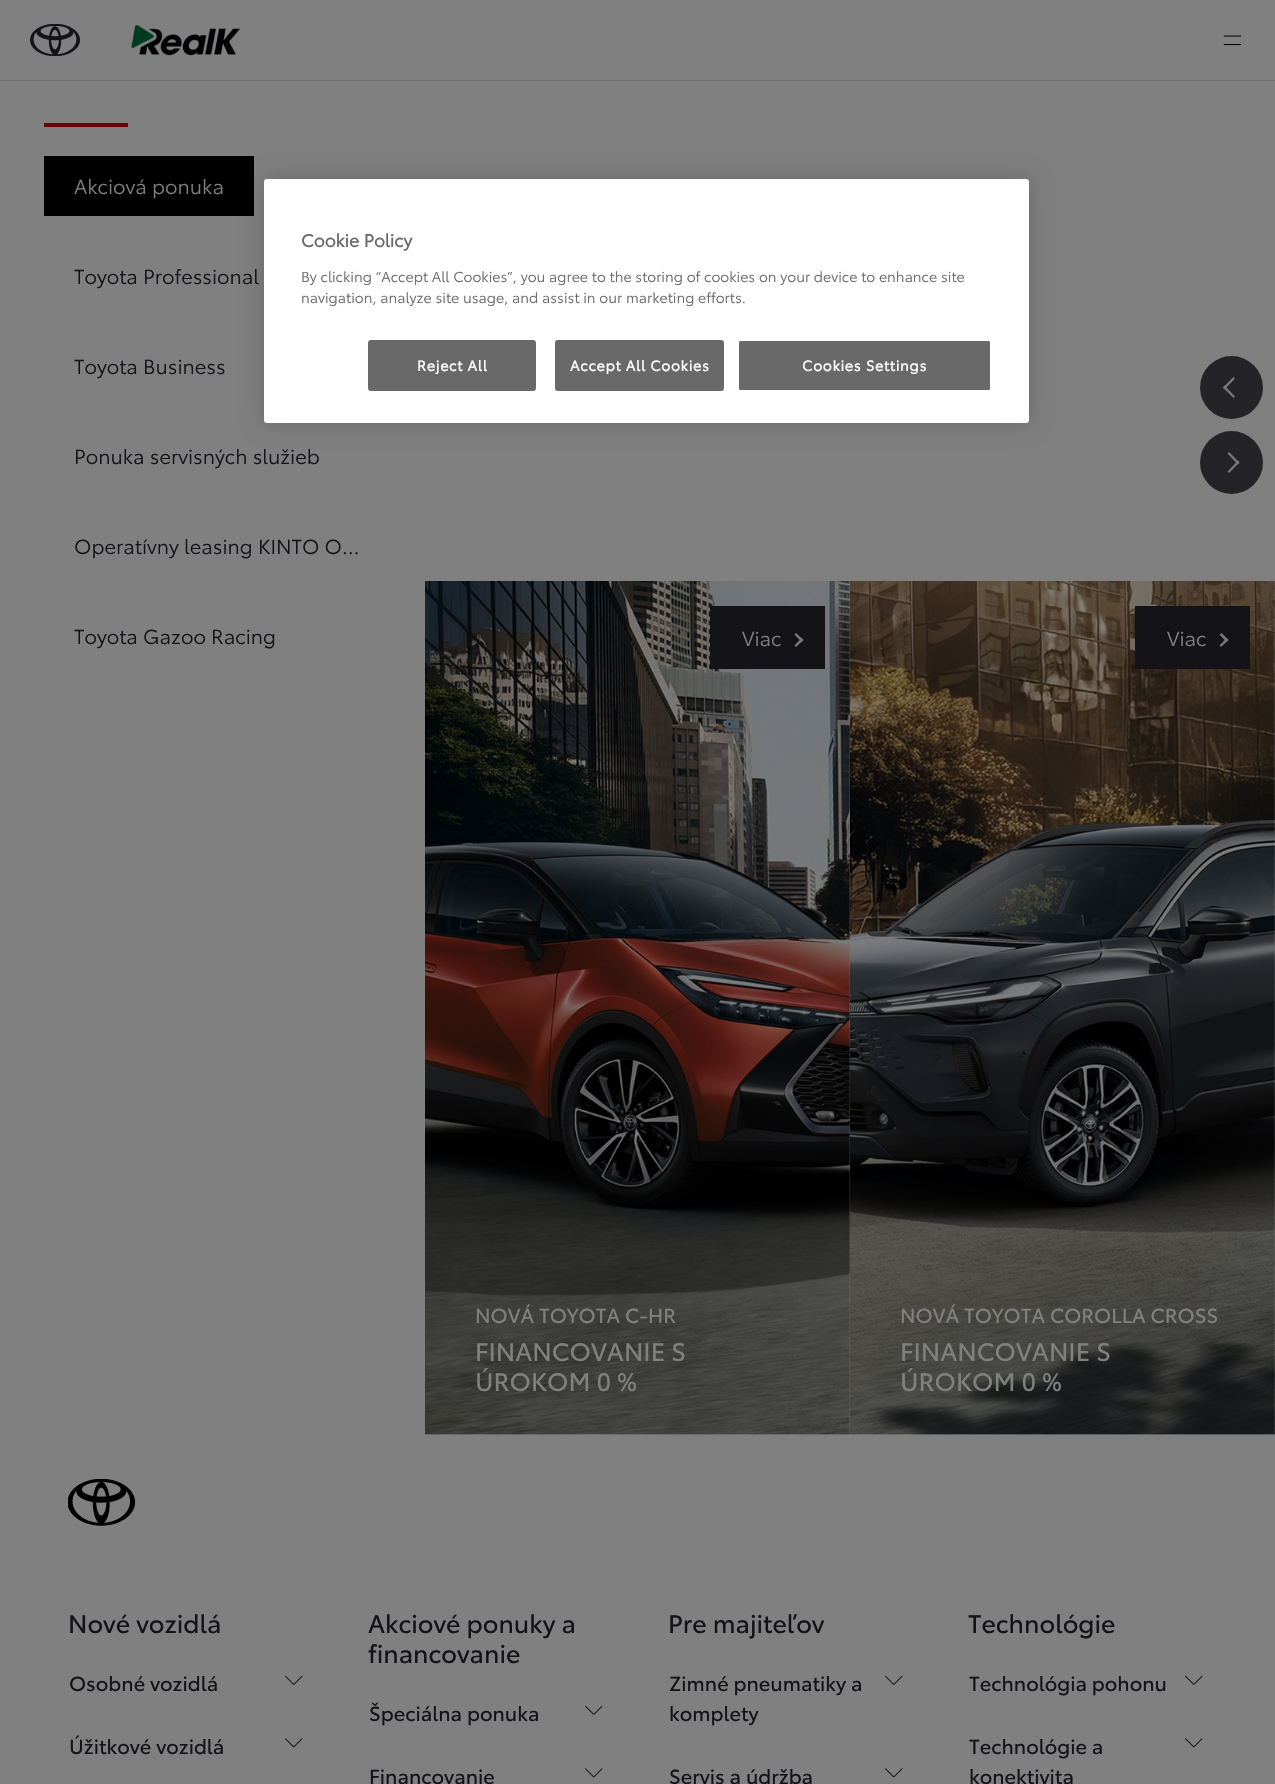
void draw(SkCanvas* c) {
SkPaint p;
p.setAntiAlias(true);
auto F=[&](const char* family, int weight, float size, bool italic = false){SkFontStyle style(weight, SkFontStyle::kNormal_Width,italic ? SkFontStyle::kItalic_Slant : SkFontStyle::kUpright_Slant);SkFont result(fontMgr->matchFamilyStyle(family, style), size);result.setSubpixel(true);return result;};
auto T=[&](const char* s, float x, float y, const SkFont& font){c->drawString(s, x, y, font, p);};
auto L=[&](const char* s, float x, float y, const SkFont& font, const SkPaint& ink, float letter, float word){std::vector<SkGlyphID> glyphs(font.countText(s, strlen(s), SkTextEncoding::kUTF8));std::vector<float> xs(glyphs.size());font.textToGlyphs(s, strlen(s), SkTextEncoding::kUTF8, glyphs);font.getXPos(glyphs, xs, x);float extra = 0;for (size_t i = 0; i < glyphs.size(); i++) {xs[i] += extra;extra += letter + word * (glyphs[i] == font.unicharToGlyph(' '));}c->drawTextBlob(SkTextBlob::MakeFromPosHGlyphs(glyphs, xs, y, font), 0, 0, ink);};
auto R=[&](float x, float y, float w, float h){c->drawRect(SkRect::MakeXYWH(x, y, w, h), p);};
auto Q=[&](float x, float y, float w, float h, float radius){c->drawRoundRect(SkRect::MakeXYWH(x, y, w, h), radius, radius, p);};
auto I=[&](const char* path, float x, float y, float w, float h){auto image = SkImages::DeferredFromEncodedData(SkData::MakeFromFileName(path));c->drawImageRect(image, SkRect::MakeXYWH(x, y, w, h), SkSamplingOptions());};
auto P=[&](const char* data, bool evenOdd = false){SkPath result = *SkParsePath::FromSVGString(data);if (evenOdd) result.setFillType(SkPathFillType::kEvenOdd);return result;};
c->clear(0xff808080);
I("1.png",30,24,50,32);
I("2.png",131,25,109,31);
I("3.png",1223,35,19,11);
p.setColor(0xff727272);
R(0,80,1275,1);
p.setColor(0xff6a0303);
R(44,123,84,4);
p.setColor(0xff000000);
R(44,156,210,60);
auto f1 = F("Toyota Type",400,20);
p.setColor(0xff808080);
T("Akciová ponuka",74,194,f1);
p.setColor(0xff141418);
T("Toyota Professional",74,284,f1);
T("Toyota Business",74,374,f1);
T("Ponuka servisných služieb",74,464,f1);
T("Operatívny leasing KINTO O…",74,554,f1);
T("Toyota Gazoo Racing",74,644,f1);
p.setColor(0xff242428);
c->drawCircle(1231.5,387.5,31.5,p);
p.setColor(0xff787878);
c->drawPath(P("M1224.5 385.5l10.5 11l-1.5 1.5l-10.5-10.5z"),p);
c->drawPath(P("M1233.5 377l1.5 1.5l-10.5 11l-1.5-2z"),p);
p.setColor(0xff242428);
c->drawCircle(1231.5,462.5,31.5,p);
p.setColor(0xff787878);
c->drawPath(P("M1229 452l10.5 10.5l-1.5 2l-10.5-11z"),p);
c->drawPath(P("M1238 460.5l1.5 2l-10.5 10.5l-1.5-1.5z"),p);
I("4.png",425,581,425,854);
p.setColor(0xff141418);
R(710,606,115,63);
p.setColor(0xff808080);
T("Viac",742,646,f1);
p.setColor(0xff787878);
c->drawPath(P("M801.5 642l-7-7.5l1.5-1.5l7.5 7z"),p);
c->drawPath(P("M796 647l-1.5-1.5l7-7.5l2 2z"),p);
auto f2 = F("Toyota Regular",400,20);
p.setColor(0xff808080);
T("NOVÁ TOYOTA C-HR",475,1323,f2);
auto f3 = F("Toyota Regular",400,25);
T("FINANCOVANIE S",475,1361,f3);
T("ÚROKOM 0 %",475,1391,f3);
I("5.png",850,581,425,854);
p.setColor(0xff141418);
R(1135,606,115,63);
p.setColor(0xff808080);
T("Viac",1167,646,f1);
p.setColor(0xff787878);
c->drawPath(P("M1226.5 642l-7-7.5l2-1.5l7 7z"),p);
c->drawPath(P("M1221 647l-1.5-1.5l7-7.5l2 2z"),p);
p.setColor(0xff808080);
T("NOVÁ TOYOTA COROLLA CROSS",900,1323,f2);
T("FINANCOVANIE S",900,1361,f3);
T("ÚROKOM 0 %",900,1391,f3);
p.setColor(0x33000000);
p.setMaskFilter(SkMaskFilter::MakeBlur(kNormal_SkBlurStyle, 11));
c->drawRoundRect(SkRect::MakeXYWH(264,179,765,244),3,3,p);
p.setMaskFilter(nullptr);
p.setColor(0xffffffff);
Q(264,179,765,244,3);
auto f4 = F("Toyota Type",700,17.5);
p.setColor(0xff696969);
T("Cookie Policy",301,247,f4);
auto f5 = F("Toyota Type",400,14.25);
T("By clicking “Accept All Cookies”, you agree to the storing of cookies on your device to enhance site",301,282,f5);
T("navigation, analyze site usage, and assist in our marketing efforts.",301,303,f5);
c->drawRoundRect(SkRect::MakeXYWH(368.5,340.5,167,50),2,2,p);
p.setStroke(true);
p.setStrokeWidth(1);
c->drawRoundRect(SkRect::MakeXYWH(368.5,340.5,167,50),2,2,p);
auto f6 = F("Toyota Type",700,14.25);
p.setStroke(false);
p.setColor(0xffffffff);
L("Reject All",417,371,f6,p,.75,0);
p.setColor(0xff696969);
c->drawRoundRect(SkRect::MakeXYWH(555.5,340.5,168,50),2,2,p);
p.setStroke(true);
c->drawRoundRect(SkRect::MakeXYWH(555.5,340.5,168,50),2,2,p);
p.setStroke(false);
p.setColor(0xffffffff);
L("Accept All Cookies",570,371,f6,p,.75,0);
p.setColor(0xff696969);
c->drawRoundRect(SkRect::MakeXYWH(738.5,340.5,252,50),2,2,p);
p.setStroke(true);
p.setColor(0xffffffff);
c->drawRoundRect(SkRect::MakeXYWH(738.5,340.5,252,50),2,2,p);
p.setStroke(false);
L("Cookies Settings",802,371,f6,p,.75,0);
I("6.png",68,1479,68,47);
p.setColor(0xff141418);
T("Nové vozidlá",68,1633,f3);
T("Osobné vozidlá",69,1691,f2);
I("7.png",285,1675,18,10);
T("Úžitkové vozidlá",69,1754,f2);
I("8.png",285,1738,18,10);
T("Akciové ponuky a",368,1633,f3);
T("financovanie",368,1663,f3);
T("Špeciálna ponuka",369,1721,f2);
I("7.png",585,1705,18,10);
T("Financovanie",369,1784,f2);
I("8.png",585,1768,18,10);
T("Pre majiteľov",668,1633,f3);
T("Zimné pneumatiky a",669,1691,f2);
T("komplety",669,1721,f2);
I("7.png",885,1675,18,10);
T("Servis a údržba",669,1784,f2);
I("8.png",885,1768,18,10);
T("Technológie",968,1633,f3);
T("Technológia pohonu",969,1691,f2);
I("7.png",1185,1675,18,10);
T("Technológie a",969,1754,f2);
T("konektivita",969,1784,f2);
I("8.png",1185,1738,18,10);
}
